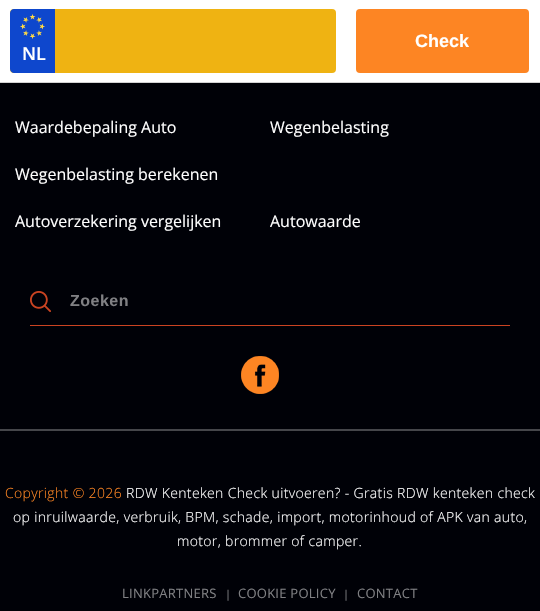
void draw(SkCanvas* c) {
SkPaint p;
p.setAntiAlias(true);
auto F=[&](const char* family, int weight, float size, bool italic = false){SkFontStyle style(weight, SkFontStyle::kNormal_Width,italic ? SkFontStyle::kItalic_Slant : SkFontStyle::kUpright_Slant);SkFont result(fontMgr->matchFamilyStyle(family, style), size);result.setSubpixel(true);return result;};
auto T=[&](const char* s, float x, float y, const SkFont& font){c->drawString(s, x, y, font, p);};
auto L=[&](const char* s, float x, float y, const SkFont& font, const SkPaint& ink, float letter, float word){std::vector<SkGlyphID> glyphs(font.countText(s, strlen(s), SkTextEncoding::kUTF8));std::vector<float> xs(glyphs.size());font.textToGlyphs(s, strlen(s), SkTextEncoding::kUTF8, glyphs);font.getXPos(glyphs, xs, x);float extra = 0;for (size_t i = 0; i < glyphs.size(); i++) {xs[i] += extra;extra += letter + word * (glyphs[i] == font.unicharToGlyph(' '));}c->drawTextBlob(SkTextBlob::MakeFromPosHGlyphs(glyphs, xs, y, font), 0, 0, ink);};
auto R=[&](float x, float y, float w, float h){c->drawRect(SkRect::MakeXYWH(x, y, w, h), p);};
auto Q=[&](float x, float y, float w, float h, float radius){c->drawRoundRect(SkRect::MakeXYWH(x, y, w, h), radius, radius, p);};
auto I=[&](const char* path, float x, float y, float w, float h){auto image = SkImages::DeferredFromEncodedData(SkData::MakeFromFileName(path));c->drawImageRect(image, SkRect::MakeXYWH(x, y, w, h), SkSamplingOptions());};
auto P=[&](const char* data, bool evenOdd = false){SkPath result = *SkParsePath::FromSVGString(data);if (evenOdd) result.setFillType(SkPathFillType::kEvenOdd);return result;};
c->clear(0xff000107);
p.setColor(0xffffffff);
R(0,0,540,82);
p.setColor(0xffd2d2d2);
R(0,82,540,1);
p.setColor(0xfffd8523);
Q(356,9,173,64,4);
auto f1 = F("Liberation Sans",700,18);
p.setColor(0xffffffff);
T("Check",415,47,f1);
p.setColor(0xffefb312);
Q(10,9,326,64,4);
p.setColor(0xff0e47cd);
c->drawPath(P("M14 9h41v64h-41c-2 0-4-2-4-4v-56c0-2 2-4 4-4z"),p);
I("1.png",20,14,25,25);
auto f2 = F("Open Sans",600,18);
p.setColor(0xffffffff);
T("NL",22,60,f2);
auto f3 = F("Open Sans",400,16);
T("Waardebepaling Auto",15,133,f3);
T("Wegenbelasting",270,133,f3);
T("Wegenbelasting berekenen",15,180,f3);
T("Autoverzekering vergelijken",15,227,f3);
T("Autowaarde",270,227,f3);
p.setColor(0xffca4321);
R(30,325,480,1);
I("2.png",30,291,21,21);
auto f4 = F("Liberation Sans",700,16);
p.setColor(0xff808083);
L("Zoeken",70,306,f4,p,.5,0);
I("3.png",241,356,38,38);
p.setColor(0xff45464a);
R(0,429,540,2);
auto f5 = F("Open Sans",300,14);
p.setColor(0xfffd8523);
L("Copyright © 2026",5,498,f5,p,.35,0);
p.setColor(0xffffffff);
L("RDW Kenteken Check uitvoeren? - Gratis RDW kenteken check",126,498,f5,p,.35,0);
L("op inruilwaarde, verbruik, BPM, schade, import, motorinhoud of APK van auto,",13,522,f5,p,.35,0);
L("motor, brommer of camper.",177,546,f5,p,.35,0);
auto f6 = F("Open Sans",400,13);
p.setColor(0xff808083);
L("LINKPARTNERS",122,598,f6,p,.25,0);
auto f7 = F("Open Sans",400,11);
L("|",225,598,f7,p,.25,0);
L("COOKIE POLICY",238,598,f6,p,.25,0);
L("|",343,598,f7,p,.25,0);
L("CONTACT",357,598,f6,p,.25,0);
}
